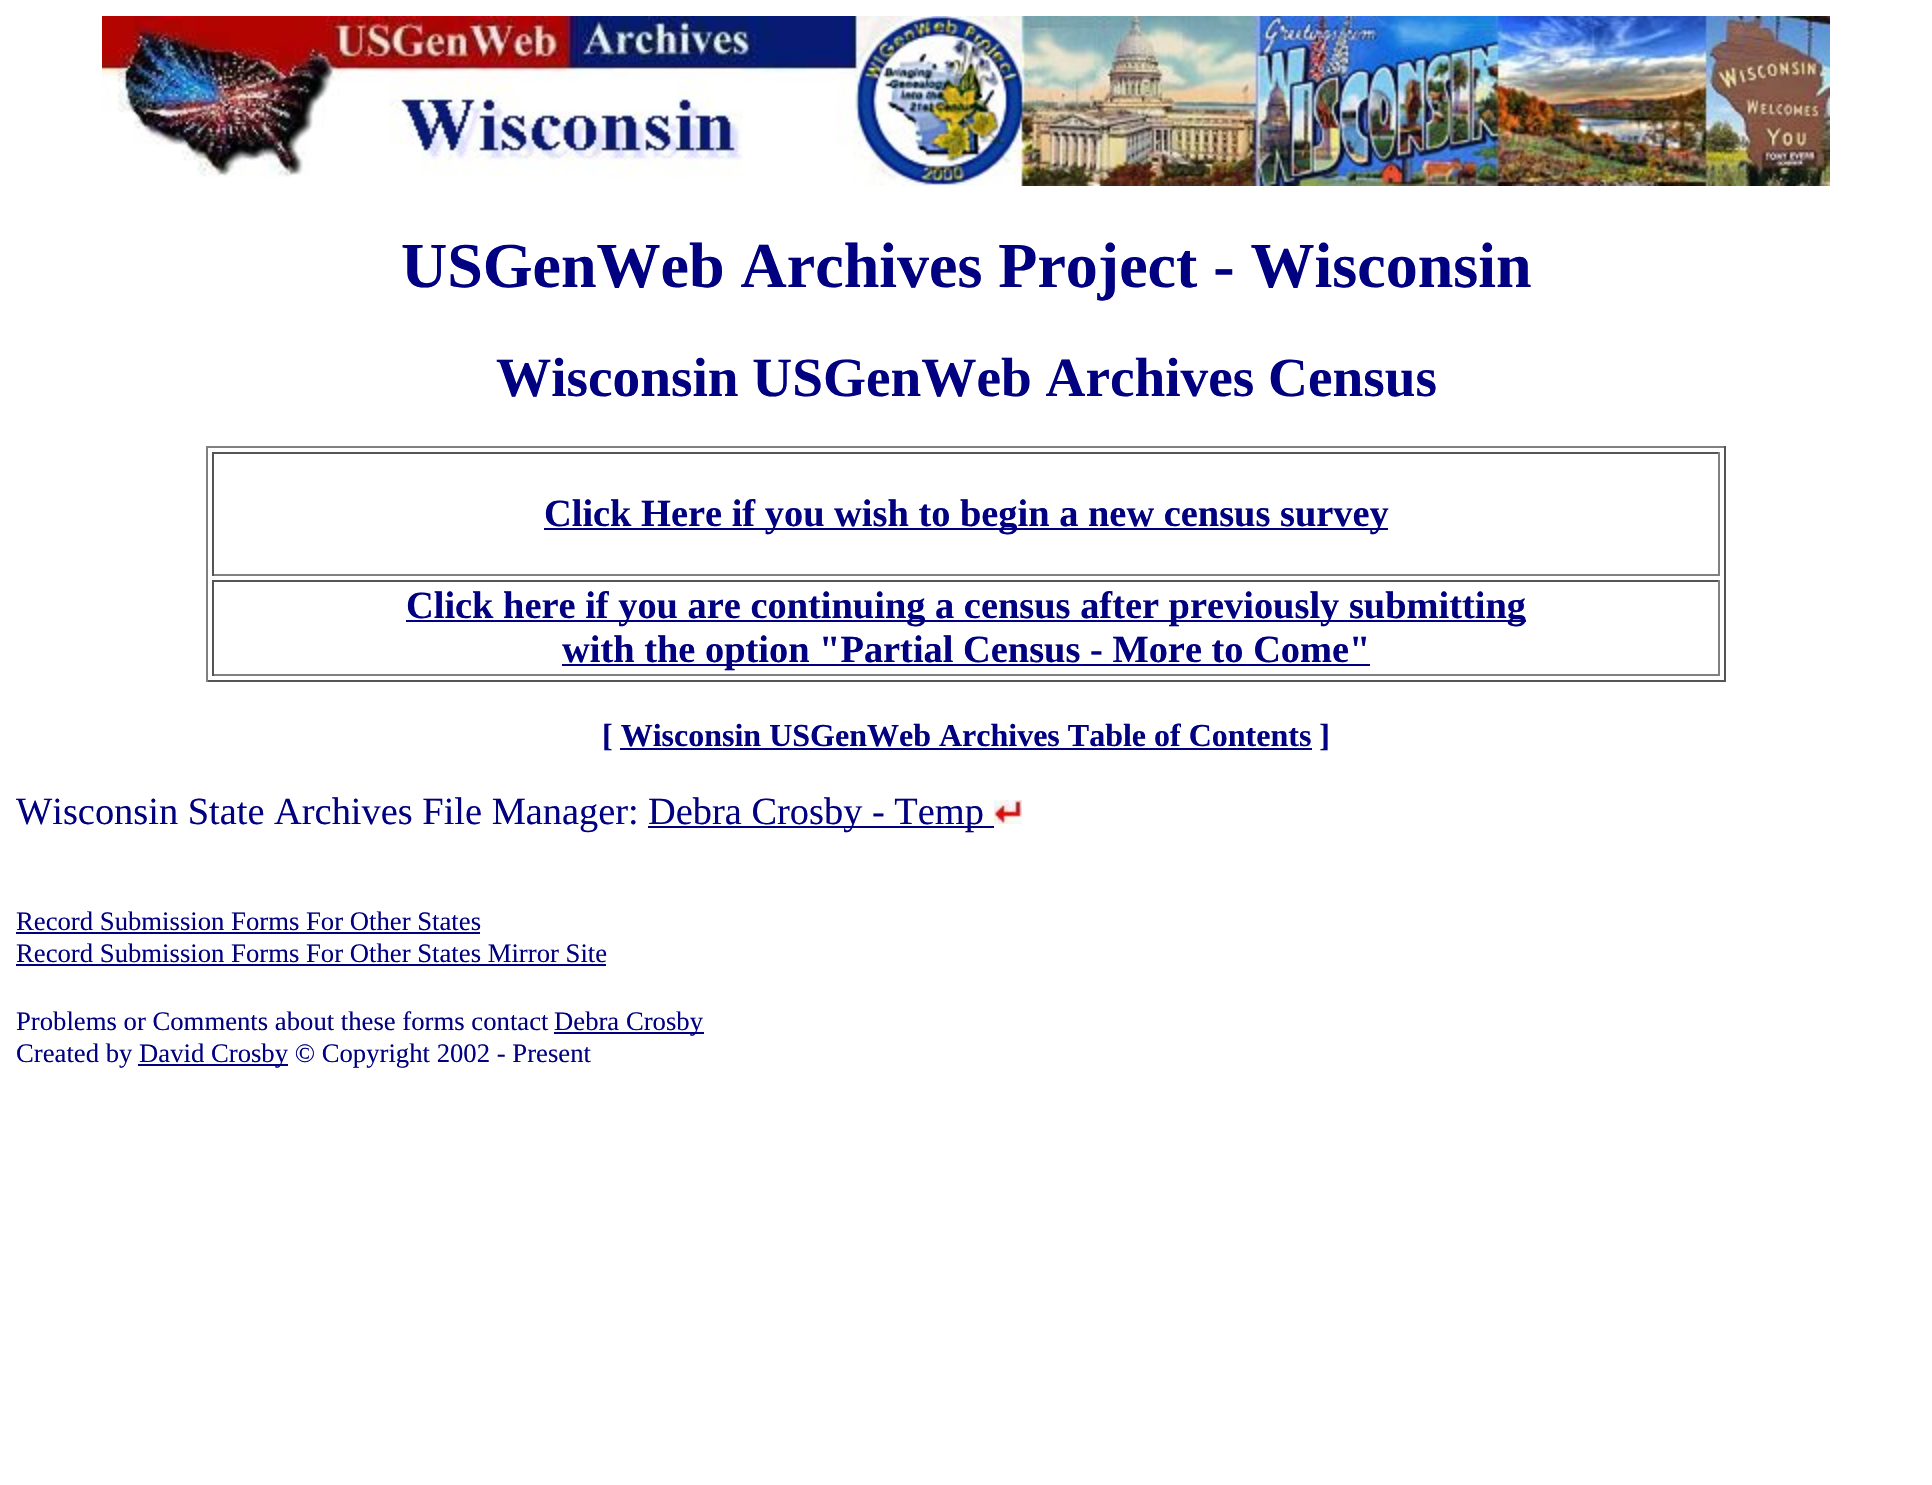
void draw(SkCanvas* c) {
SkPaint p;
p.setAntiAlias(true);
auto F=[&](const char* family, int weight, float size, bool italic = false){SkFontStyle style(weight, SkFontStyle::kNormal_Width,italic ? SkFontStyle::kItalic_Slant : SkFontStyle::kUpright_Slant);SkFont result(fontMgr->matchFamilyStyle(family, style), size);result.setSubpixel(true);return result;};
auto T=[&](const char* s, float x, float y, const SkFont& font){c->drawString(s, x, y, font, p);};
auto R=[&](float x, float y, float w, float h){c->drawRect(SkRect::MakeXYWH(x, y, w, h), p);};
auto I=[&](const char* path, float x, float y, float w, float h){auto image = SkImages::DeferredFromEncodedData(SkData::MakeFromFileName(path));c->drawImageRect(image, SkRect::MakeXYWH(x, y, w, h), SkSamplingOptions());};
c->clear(0xffffffff);
I("1.png",102,16,1728,170);
auto f1 = F("Liberation Serif",700,64);
p.setColor(0xff000080);
T("USGenWeb Archives Project - Wisconsin",401,287,f1);
auto f2 = F("Liberation Serif",700,55.25);
T("Wisconsin USGenWeb Archives Census",496,396,f2);
p.setColor(0xff808080);
R(206,446,1520,2);
p.setColor(0xff555555);
R(1724,446,2,236);
R(206,680,1520,2);
p.setColor(0xff808080);
R(206,446,2,236);
p.setColor(0xff555555);
R(212,452,1508,2);
p.setColor(0xff808080);
R(1718,452,2,124);
R(212,574,1508,2);
p.setColor(0xff555555);
R(212,452,2,124);
p.setColor(0xff000080);
R(544,528,844,2);
auto f3 = F("Liberation Serif",700,38.4);
T("Click Here if you wish to begin a new census survey",544,526,f3);
p.setColor(0xff555555);
R(212,580,1508,2);
p.setColor(0xff808080);
R(1718,580,2,96);
R(212,674,1508,2);
p.setColor(0xff555555);
R(212,580,2,96);
p.setColor(0xff000080);
R(406,620,1120,2);
T("Click here if you are continuing a census after previously submitting",406,618,f3);
R(562,664,808,2);
T("with the option \"Partial Census - More to Come\"",562,662,f3);
auto f4 = F("Liberation Serif",700,32);
T("[ Wisconsin USGenWeb Archives Table of Contents ]",602,746,f4);
R(620,748,692,2);
auto f5 = F("Liberation Serif",400,38.4);
T("Wisconsin State Archives File Manager:",16,824,f5);
R(648,826,346,2);
T("Debra Crosby - Temp",648,824,f5);
I("2.png",994,800,28,24);
auto f6 = F("Liberation Serif",400,26.7);
T("Record Submission Forms For Other States",16,930,f6);
R(16,932,464,2);
T("Record Submission Forms For Other States Mirror Site",16,962,f6);
R(16,964,590,2);
T("Problems or Comments about these forms contact",16,1030,f6);
R(554,1032,150,2);
T("Debra Crosby",554,1030,f6);
T("Created by",16,1062,f6);
R(138,1064,150,2);
T("David Crosby © Copyright 2002 - Present",139,1062,f6);
}
